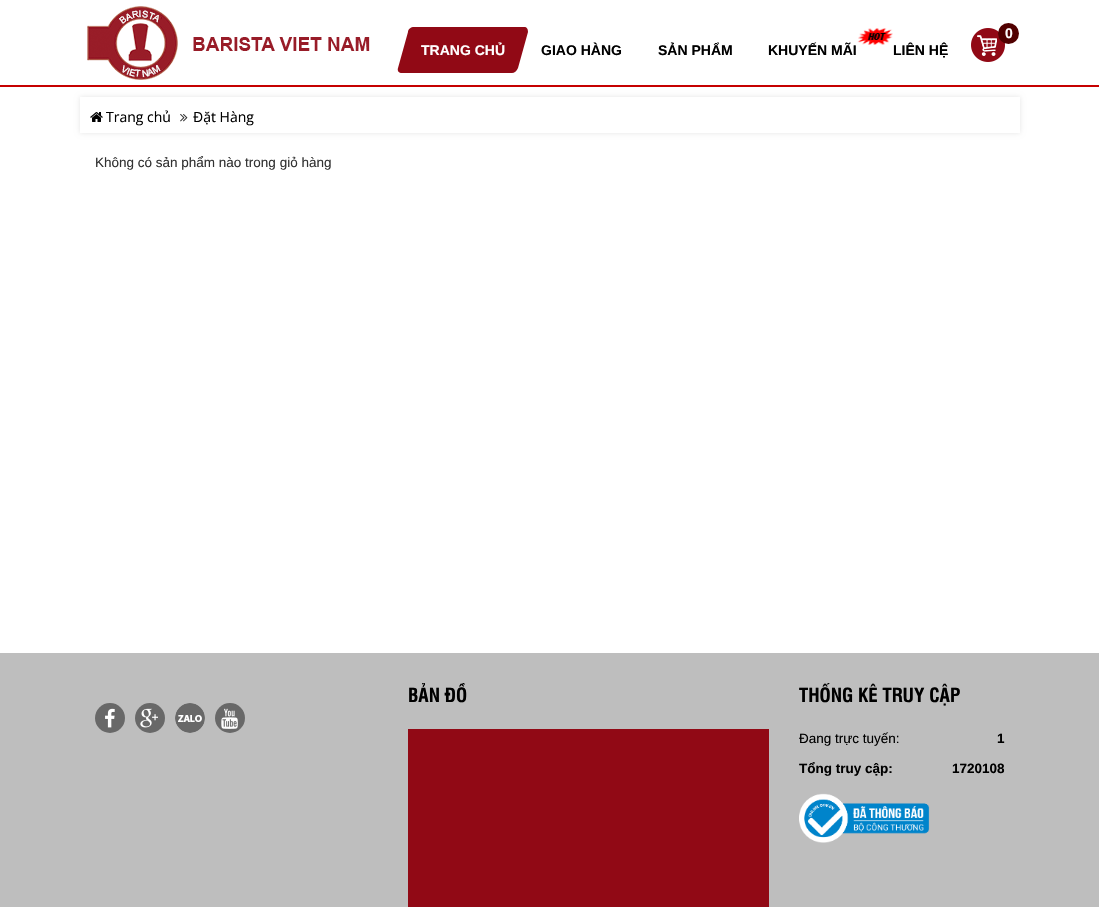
void draw(SkCanvas* c) {
SkPaint p;
p.setAntiAlias(true);
auto F=[&](const char* family, int weight, float size, bool italic = false){SkFontStyle style(weight, SkFontStyle::kNormal_Width,italic ? SkFontStyle::kItalic_Slant : SkFontStyle::kUpright_Slant);SkFont result(fontMgr->matchFamilyStyle(family, style), size);result.setSubpixel(true);return result;};
auto T=[&](const char* s, float x, float y, const SkFont& font){c->drawString(s, x, y, font, p);};
auto R=[&](float x, float y, float w, float h){c->drawRect(SkRect::MakeXYWH(x, y, w, h), p);};
auto I=[&](const char* path, float x, float y, float w, float h){auto image = SkImages::DeferredFromEncodedData(SkData::MakeFromFileName(path));c->drawImageRect(image, SkRect::MakeXYWH(x, y, w, h), SkSamplingOptions());};
auto P=[&](const char* data, bool evenOdd = false){SkPath result = *SkParsePath::FromSVGString(data);if (evenOdd) result.setFillType(SkPathFillType::kEvenOdd);return result;};
c->clear(0xffffffff);
p.setColor(0xffc60000);
R(0,85,1099,2);
I("1.png",87,6,283,74);
I("2.png",971,28,34,34);
p.setColor(0xff510000);
c->drawCircle(1008.5,33.5,10.5,p);
auto f1 = F("Liberation Sans",700,14);
p.setColor(0xffffffff);
T("0",1005,38,f1);
p.setColor(0xff910915);
c->drawPath(P("M414 27h110c3 0 4 2 4 5l-10 36c-1 3-4 5-6 5h-110c-3 0-5-2-4-5l10-36c0-3 3-5 6-5z"),p);
p.setColor(0xffffffff);
T("TRANG CHỦ",421,55,f1);
p.setColor(0xff000000);
T("GIAO HÀNG",541,55,f1);
T("SẢN PHẨM",658,55,f1);
I("3.png",857,28,36,17);
T("KHUYẾN MÃI",768,55,f1);
T("LIÊN HỆ",893,55,f1);
c->save();
c->clipPath(P("M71 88h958v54h-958zm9 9h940v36h-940z",true),true);
p.setColor(0x1a000000);
p.setMaskFilter(SkMaskFilter::MakeBlur(kNormal_SkBlurStyle, 2.5));
c->drawRect(SkRect::MakeXYWH(80,97,940,36),p);
p.setMaskFilter(nullptr);
c->restore();
I("4.png",90,112,13,10);
auto f2 = F("Open Sans",400,14);
p.setColor(0xff000000);
T("Trang chủ",106,122,f2);
I("5.png",180,114,8,8);
T("Đặt Hàng",193,122,f2);
auto f3 = F("Liberation Sans",400,13.5);
p.setColor(0xff333333);
T("Không có sản phẩm nào trong giỏ hàng",95,167,f3);
p.setColor(0xffbebebe);
R(0,653,1099,254);
p.setColor(0xff686868);
c->drawCircle(110,718,15,p);
I("6.png",105,708,10,20);
c->drawCircle(150,718,15,p);
I("7.png",140,708,18,20);
I("8.png",175,703,30,30);
c->drawCircle(230,718,15,p);
I("9.png",221,708,17,21);
c->save();
c->clipRect(SkRect::MakeXYWH(393,683,391,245));
auto f4 = F("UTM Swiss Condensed",700,19);
p.setColor(0xff000000);
T("BẢN ĐỒ",408,702,f4);
c->restore();
p.setColor(0xff910915);
R(408,729,361,178);
c->save();
c->clipRect(SkRect::MakeXYWH(784,683,235,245));
p.setColor(0xff000000);
T("THỐNG KÊ TRUY CẬP",799,702,f4);
c->restore();
T("Đang trực tuyến:",799,743,f3);
auto f5 = F("Liberation Sans",700,13.5);
T("1",997,743,f5);
T("Tổng truy cập:",799,773,f5);
T("1720108",952,773,f5);
I("10.png",799,793,131,50);
}
